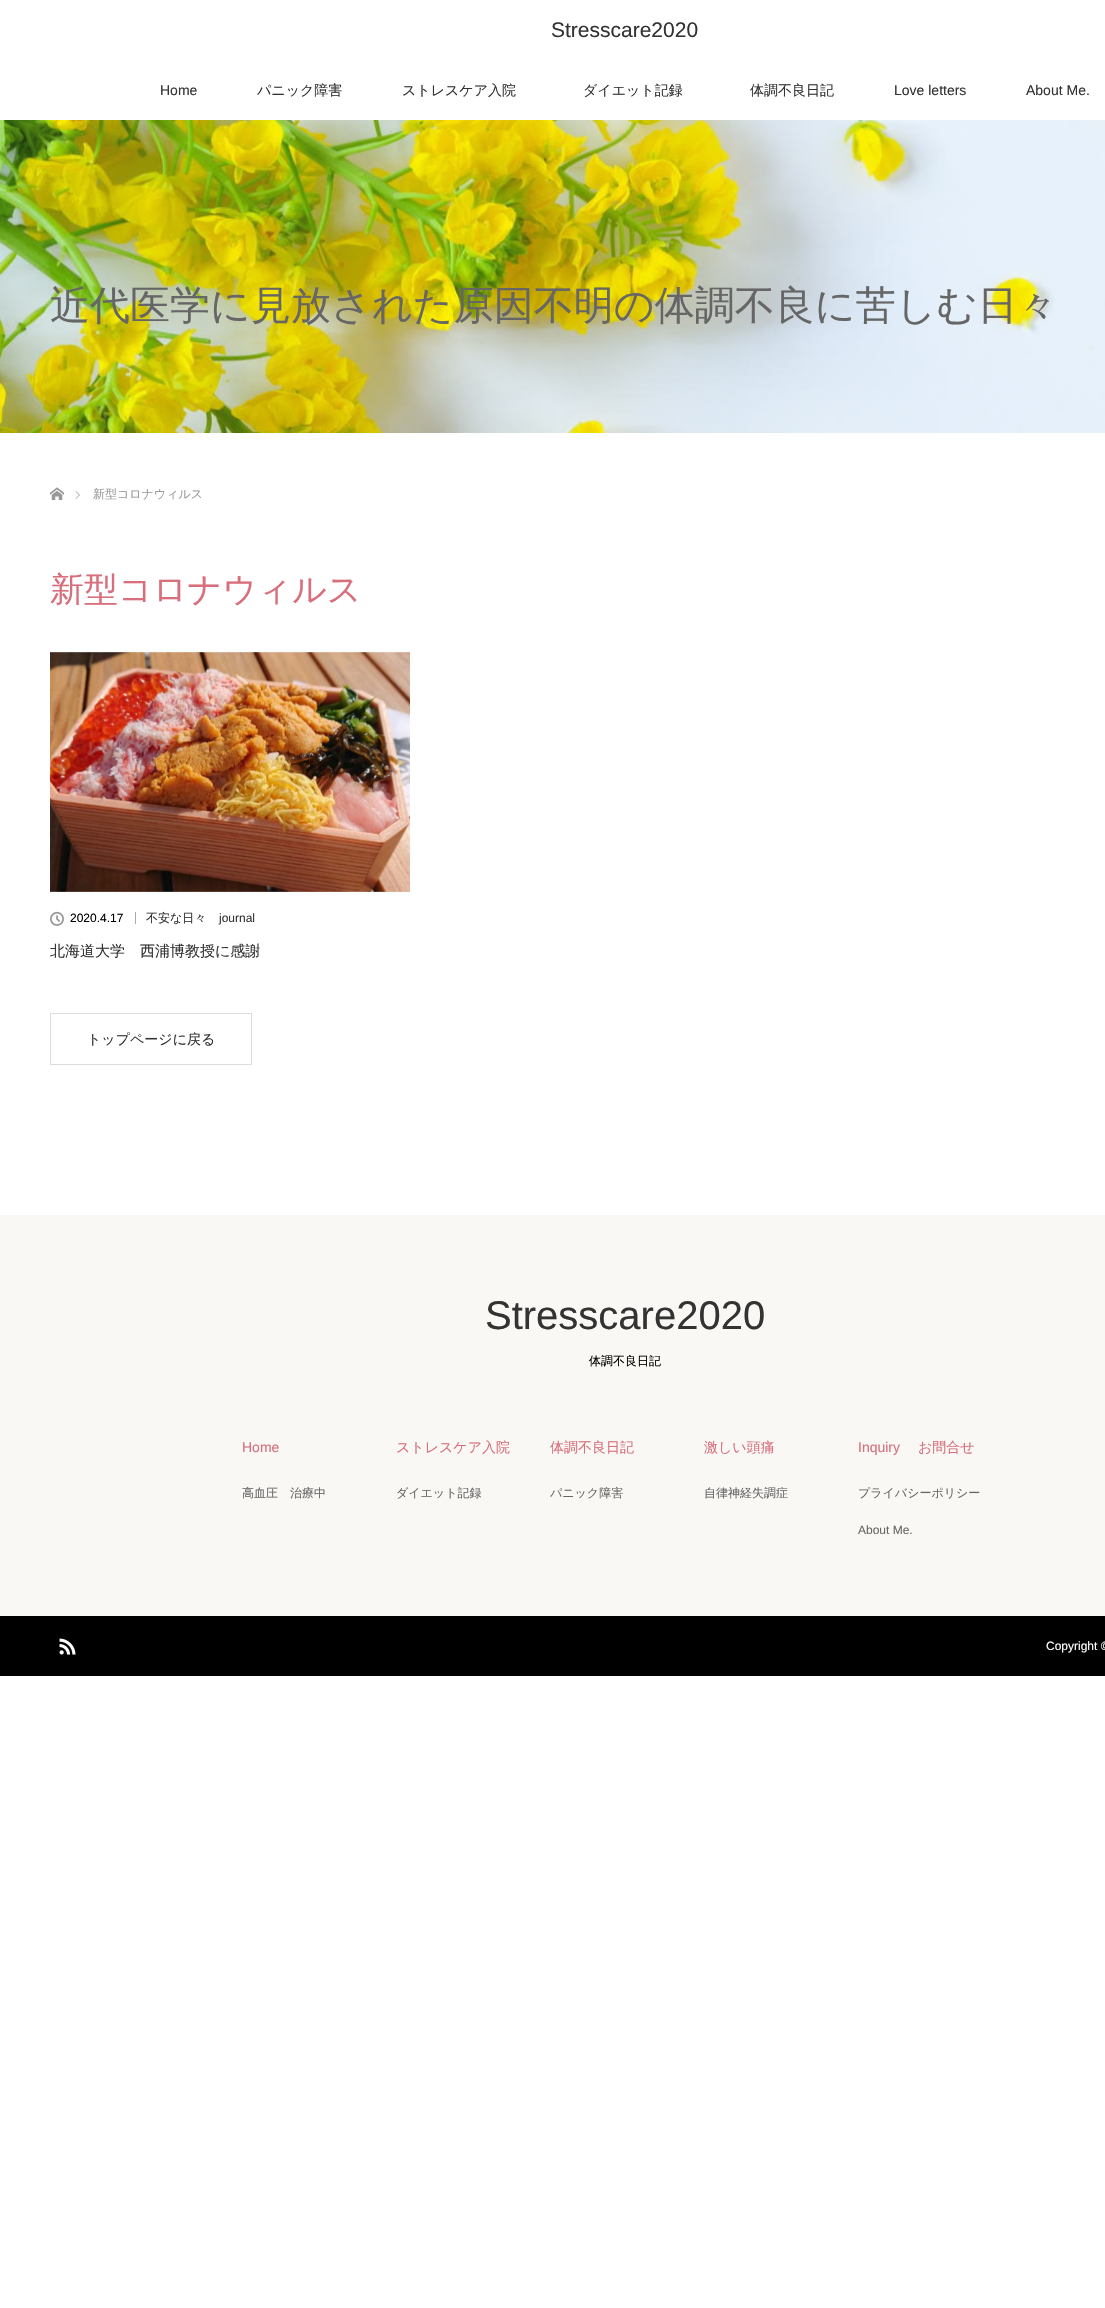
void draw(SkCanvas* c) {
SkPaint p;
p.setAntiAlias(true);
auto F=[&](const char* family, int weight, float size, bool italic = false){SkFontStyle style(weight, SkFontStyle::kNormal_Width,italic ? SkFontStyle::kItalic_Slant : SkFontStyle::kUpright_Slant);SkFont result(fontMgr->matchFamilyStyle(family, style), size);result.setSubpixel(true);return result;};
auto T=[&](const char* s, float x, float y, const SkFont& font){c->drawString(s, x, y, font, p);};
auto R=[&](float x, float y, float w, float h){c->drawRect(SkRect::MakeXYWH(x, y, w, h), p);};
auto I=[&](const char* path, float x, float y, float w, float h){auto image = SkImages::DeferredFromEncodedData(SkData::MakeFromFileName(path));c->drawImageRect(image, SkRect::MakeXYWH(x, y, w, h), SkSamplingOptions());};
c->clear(0xffffffff);
auto f1 = F("Liberation Sans",400,21);
p.setColor(0xff333333);
T("Stresscare2020",551,37,f1);
auto f2 = F("Liberation Sans",400,14);
T("Home",160,95,f2);
auto f3 = F("WenQuanYi Zen Hei",500,14);
T("パニック障害",257,95,f3);
T("ストレスケア入院",402,95,f3);
T("ダイエット記録",583,95,f3);
T("体調不良日記",750,95,f3);
T("Love letters",894,95,f2);
T("About Me.",1026,95,f2);
I("1.png",0,120,1105,313);
auto f4 = F("WenQuanYi Zen Hei",500,40);
p.setColor(0xff666666);
T("近代医学に見放された原因不明の体調不良に苦しむ日々",50,319,f4);
I("2.png",50,487,14,13);
I("3.png",75,491,5,8);
auto f5 = F("WenQuanYi Zen Hei",500,12);
p.setColor(0xff999999);
T("新型コロナウィルス",93,498,f5);
auto f6 = F("WenQuanYi Zen Hei",500,34);
p.setColor(0xffd86f7c);
T("新型コロナウィルス",50,601,f6);
I("4.png",50,652,360,240);
I("5.png",50,911,14,15);
auto f7 = F("Liberation Sans",400,12);
p.setColor(0xff000000);
T("2020.4.17",70,922,f7);
p.setColor(0xffaaaaaa);
R(135,912,1,12);
p.setColor(0xff333333);
T("不安な日々",146,922,f5);
T("journal",219,922,f7);
auto f8 = F("WenQuanYi Zen Hei",500,15);
T("北海道大学　西浦博教授に感謝",50,956,f8);
p.setStroke(true);
p.setStrokeWidth(1);
p.setColor(0xffdddddd);
c->drawRect(SkRect::MakeXYWH(50.5,1013.5,201,51),p);
p.setStroke(false);
p.setColor(0xff333333);
T("トップページに戻る",87,1044,f3);
p.setColor(0xfff9f8f4);
R(0,1215,1105,401);
auto f9 = F("Liberation Sans",400,40);
p.setColor(0xff333333);
T("Stresscare2020",485,1329,f9);
p.setColor(0xff000000);
T("体調不良日記",589,1365,f5);
p.setColor(0xffd86f7c);
T("Home",242,1452,f2);
p.setColor(0xff666666);
T("高血圧　治療中",242,1497,f5);
p.setColor(0xffd86f7c);
T("ストレスケア入院",396,1452,f3);
p.setColor(0xff666666);
T("ダイエット記録",396,1497,f5);
p.setColor(0xffd86f7c);
T("体調不良日記",550,1452,f3);
p.setColor(0xff666666);
T("パニック障害",550,1497,f5);
p.setColor(0xffd86f7c);
T("激しい頭痛",704,1452,f3);
p.setColor(0xff666666);
T("自律神経失調症",704,1497,f5);
p.setColor(0xffd86f7c);
T("Inquiry",858,1452,f2);
T("お問合せ",918,1452,f3);
p.setColor(0xff666666);
T("プライバシーポリシー",858,1497,f5);
T("About Me.",858,1534,f7);
p.setColor(0xff000000);
R(0,1616,1105,60);
I("6.png",59,1638,17,17);
p.setColor(0xffffffff);
T("Copyright ©",1046,1650,f7);
}
